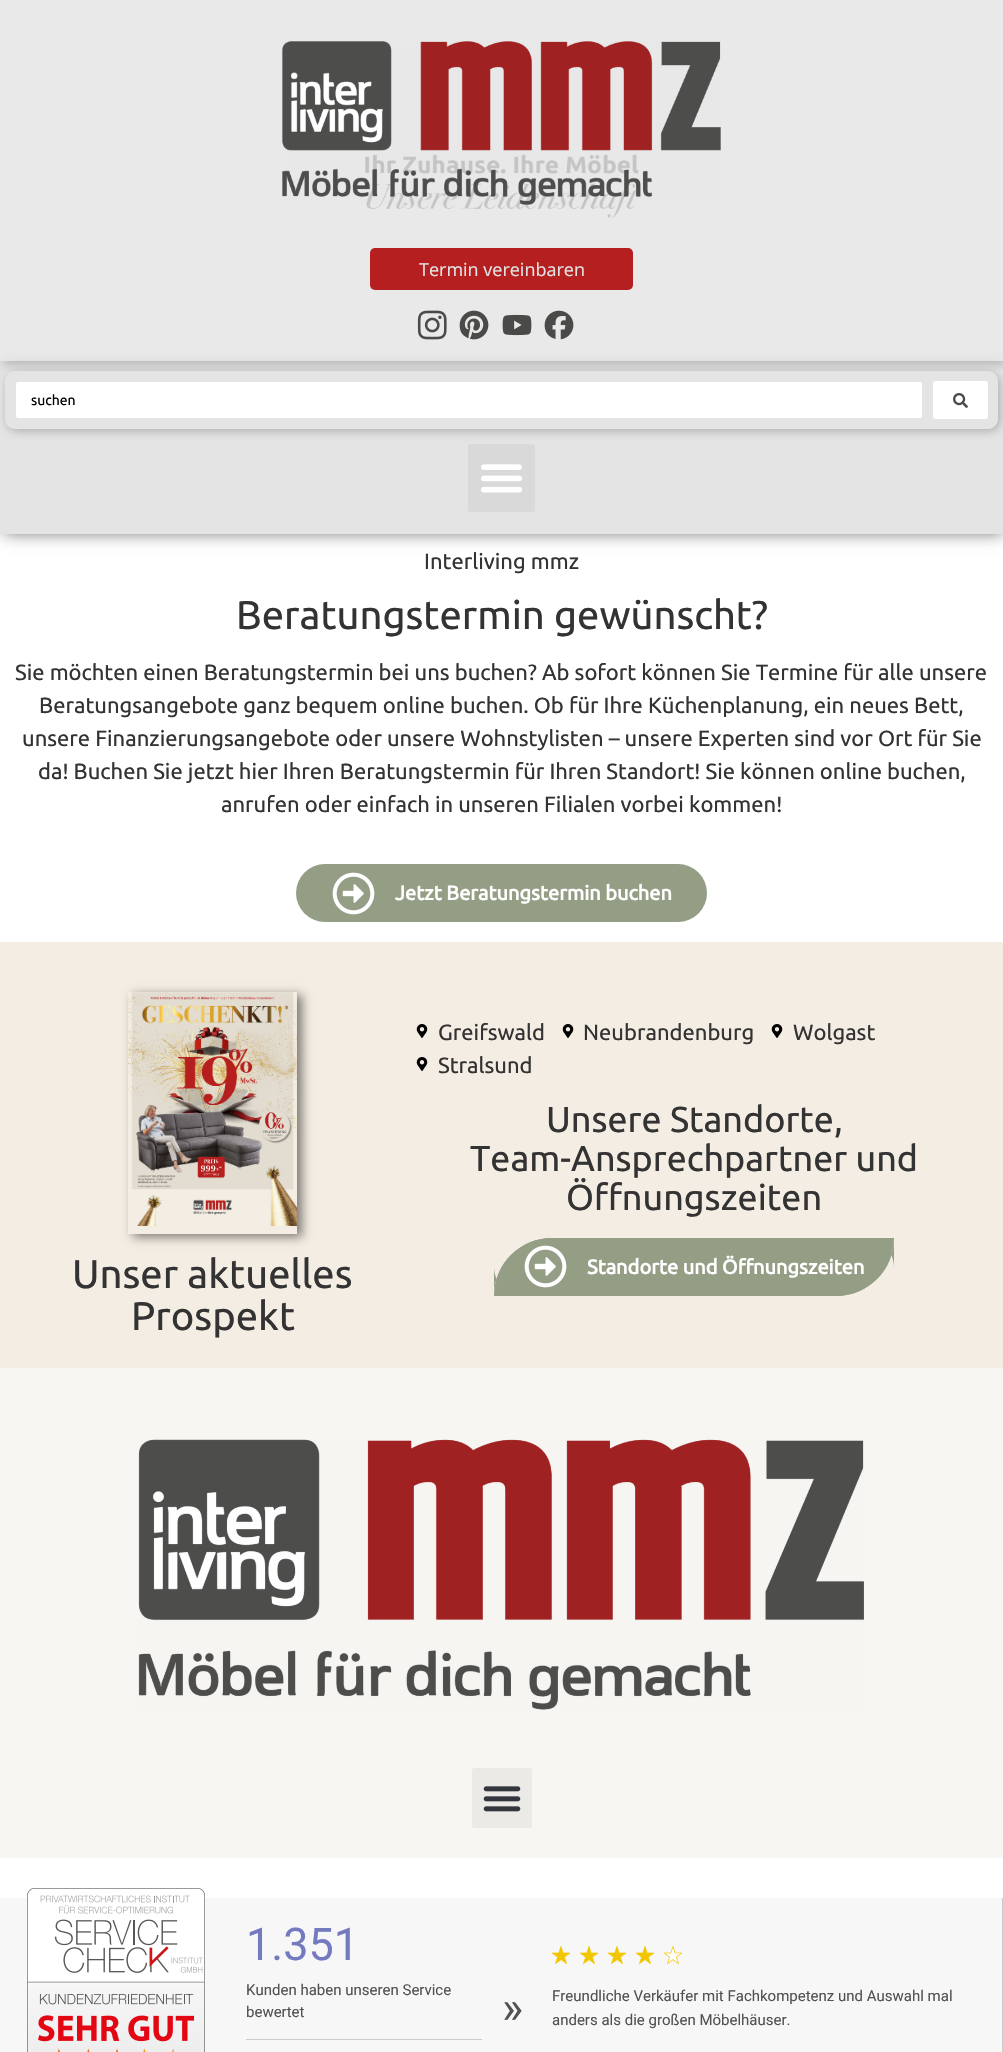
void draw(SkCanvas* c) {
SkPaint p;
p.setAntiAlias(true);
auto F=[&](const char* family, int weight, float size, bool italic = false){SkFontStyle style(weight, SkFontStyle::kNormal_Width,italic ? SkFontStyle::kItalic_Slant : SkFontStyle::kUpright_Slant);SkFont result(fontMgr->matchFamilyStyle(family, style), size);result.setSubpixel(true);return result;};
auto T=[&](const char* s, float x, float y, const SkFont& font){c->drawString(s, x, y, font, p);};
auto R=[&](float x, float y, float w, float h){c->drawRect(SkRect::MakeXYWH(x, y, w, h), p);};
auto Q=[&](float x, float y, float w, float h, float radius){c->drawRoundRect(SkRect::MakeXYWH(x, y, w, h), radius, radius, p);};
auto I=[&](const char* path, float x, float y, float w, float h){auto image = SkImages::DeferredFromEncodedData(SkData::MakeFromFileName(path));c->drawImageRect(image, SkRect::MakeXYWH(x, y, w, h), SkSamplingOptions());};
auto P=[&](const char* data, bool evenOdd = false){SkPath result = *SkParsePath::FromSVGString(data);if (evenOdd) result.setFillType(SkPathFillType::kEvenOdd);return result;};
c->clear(0xffffffff);
p.setColor(0x80000000);
p.setMaskFilter(SkMaskFilter::MakeBlur(kNormal_SkBlurStyle, 7.5));
c->drawRect(SkRect::MakeXYWH(4,365,999,169),p);
p.setMaskFilter(nullptr);
p.setColor(0xffe4e4e4);
R(0,361,1003,173);
c->save();
c->clipRect(SkRect::MakeXYWH(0,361,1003,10));
p.setColor(0x38000000);
p.setMaskFilter(SkMaskFilter::MakeBlur(kNormal_SkBlurStyle, 5));
c->drawRect(SkRect::MakeXYWH(3,3,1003,361),p);
p.setMaskFilter(nullptr);
c->restore();
I("1.png",365,154,274,65);
p.setColor(0xffd9d9d9);
Q(468,444,67,68,3);
c->save();
c->clipPath(P("M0 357h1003v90h-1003zm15 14h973c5.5 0 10 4.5 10 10v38c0 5.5-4.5 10-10 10h-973c-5.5 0-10-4.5-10-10v-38c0-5.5 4.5-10 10-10z",true),true);
p.setColor(0x3d000000);
p.setMaskFilter(SkMaskFilter::MakeBlur(kNormal_SkBlurStyle, 5));
c->drawRoundRect(SkRect::MakeXYWH(7,373,993,58),10,10,p);
p.setMaskFilter(nullptr);
c->restore();
p.setColor(0xcce4e4e4);
R(0,0,1003,361);
I("2.png",282,41,439,164);
p.setColor(0xffb51f1f);
Q(370,248,263,42,5);
auto f1 = F("Open Sans",400,18);
p.setColor(0xffe4e4e4);
T("Termin vereinbaren",419,276,f1);
I("3.png",417,310,30,30);
I("4.png",459,310,30,30);
I("5.png",502,314,30,22);
I("6.png",544,310,30,30);
p.setColor(0xffffffff);
c->drawRoundRect(SkRect::MakeXYWH(15.5,381.5,907,37),2.5,2.5,p);
p.setStroke(true);
p.setStrokeWidth(1);
p.setColor(0xffe1e5eb);
c->drawRoundRect(SkRect::MakeXYWH(15.5,381.5,907,37),2.5,2.5,p);
auto f2 = F("Ubuntu",400,14);
p.setStroke(false);
p.setColor(0xff000000);
T("suchen",31,405,f2);
p.setColor(0xffffffff);
Q(933,381,55,38,3);
I("7.png",953,393,15,15);
I("8.png",481,464,41,29);
auto f3 = F("Ubuntu",400,22);
p.setColor(0xff333333);
T("Interliving mmz",424,569,f3);
auto f4 = F("Ubuntu",400,40);
T("Beratungstermin gewünscht?",236,629,f4);
T("Sie möchten einen Beratungstermin bei uns buchen? Ab sofort können Sie Termine für alle unsere",15,680,f3);
T("Beratungsangebote ganz bequem online buchen. Ob für Ihre Küchenplanung, ein neues Bett,",39,713,f3);
T("unsere Finanzierungsangebote oder unsere Wohnstylisten – unsere Experten sind vor Ort für Sie",22,746,f3);
T("da! Buchen Sie jetzt hier Ihren Beratungstermin für Ihren Standort! Sie können online buchen,",38,779,f3);
T("anrufen oder einfach in unseren Filialen vorbei kommen!",221,812,f3);
p.setColor(0xff949e85);
Q(296,864,411,58,29);
I("9.png",332,872,43,43);
auto f5 = F("Ubuntu",700,20);
p.setColor(0xffffffff);
T("Jetzt Beratungstermin buchen",395,900,f5);
p.setColor(0xfff3ede3);
R(0,942,1003,426);
I("10.png",416,1024,12,14);
p.setColor(0xff333333);
T("Greifswald",438,1040,f3);
I("10.png",562,1024,12,14);
T("Neubrandenburg",583,1040,f3);
I("10.png",771,1024,12,14);
T("Wolgast",793,1040,f3);
I("10.png",416,1057,12,14);
T("Stralsund",438,1073,f3);
auto f6 = F("Ubuntu",400,36);
T("Unsere Standorte,",546,1132,f6);
T("Team-Ansprechpartner und",470,1171,f6);
T("Öffnungszeiten",566,1210,f6);
p.setColor(0xff949e85);
c->drawPath(P("M552 1238h342c0 32-26 58-58 58h-342c0-32 26-58 58-58z"),p);
c->drawPath(P("M552 1238h313c16 0 29 13 29 29v-29c0 32-26 58-58 58h-313c-16 0-29-13-29-29v29c0-32 26-58 58-58z"),p);
I("9.png",524,1245,43,43);
p.setColor(0xffffffff);
T("Standorte und Öffnungszeiten",587,1274,f5);
c->save();
c->clipPath(P("M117 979h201v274h-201zm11 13h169v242h-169z",true),true);
p.setColor(0x80000000);
p.setMaskFilter(SkMaskFilter::MakeBlur(kNormal_SkBlurStyle, 5));
c->drawRect(SkRect::MakeXYWH(133,995,169,242),p);
p.setMaskFilter(nullptr);
c->restore();
I("11.png",128,992,169,234);
p.setColor(0xff333333);
T("Unser aktuelles",72,1288,f4);
T("Prospekt",131,1330,f4);
p.setColor(0xfff7f6f3);
R(0,1368,1003,490);
I("12.png",138,1439,726,271);
p.setColor(0xffebeae7);
Q(472,1768,60,60,3);
I("13.png",483,1786,38,26);
p.setColor(0xfff7f7f7);
R(0,1898,1002,154);
I("14.png",27,1888,178,164);
auto f7 = F("Roboto",400,45);
p.setColor(0xff747ac0);
T("1.351",246,1960,f7);
auto f8 = F("Roboto",400,15);
p.setColor(0xff525252);
T("Kunden haben unseren Service",246,1995,f8);
T("bewertet",246,2017,f8);
p.setColor(0xffcccccc);
R(246,2039,236,1);
R(1002,1898,1,154);
I("15.png",552,1946,18,18);
I("15.png",580,1946,18,18);
I("15.png",608,1946,18,18);
I("15.png",636,1946,18,18);
I("16.png",664,1946,18,18);
p.setColor(0xff525252);
T("Freundliche Verkäufer mit Fachkompetenz und Auswahl mal",552,2001,f8);
T("»",502,2023,f7);
T("anders als die großen Möbelhäuser.",552,2025,f8);
}
